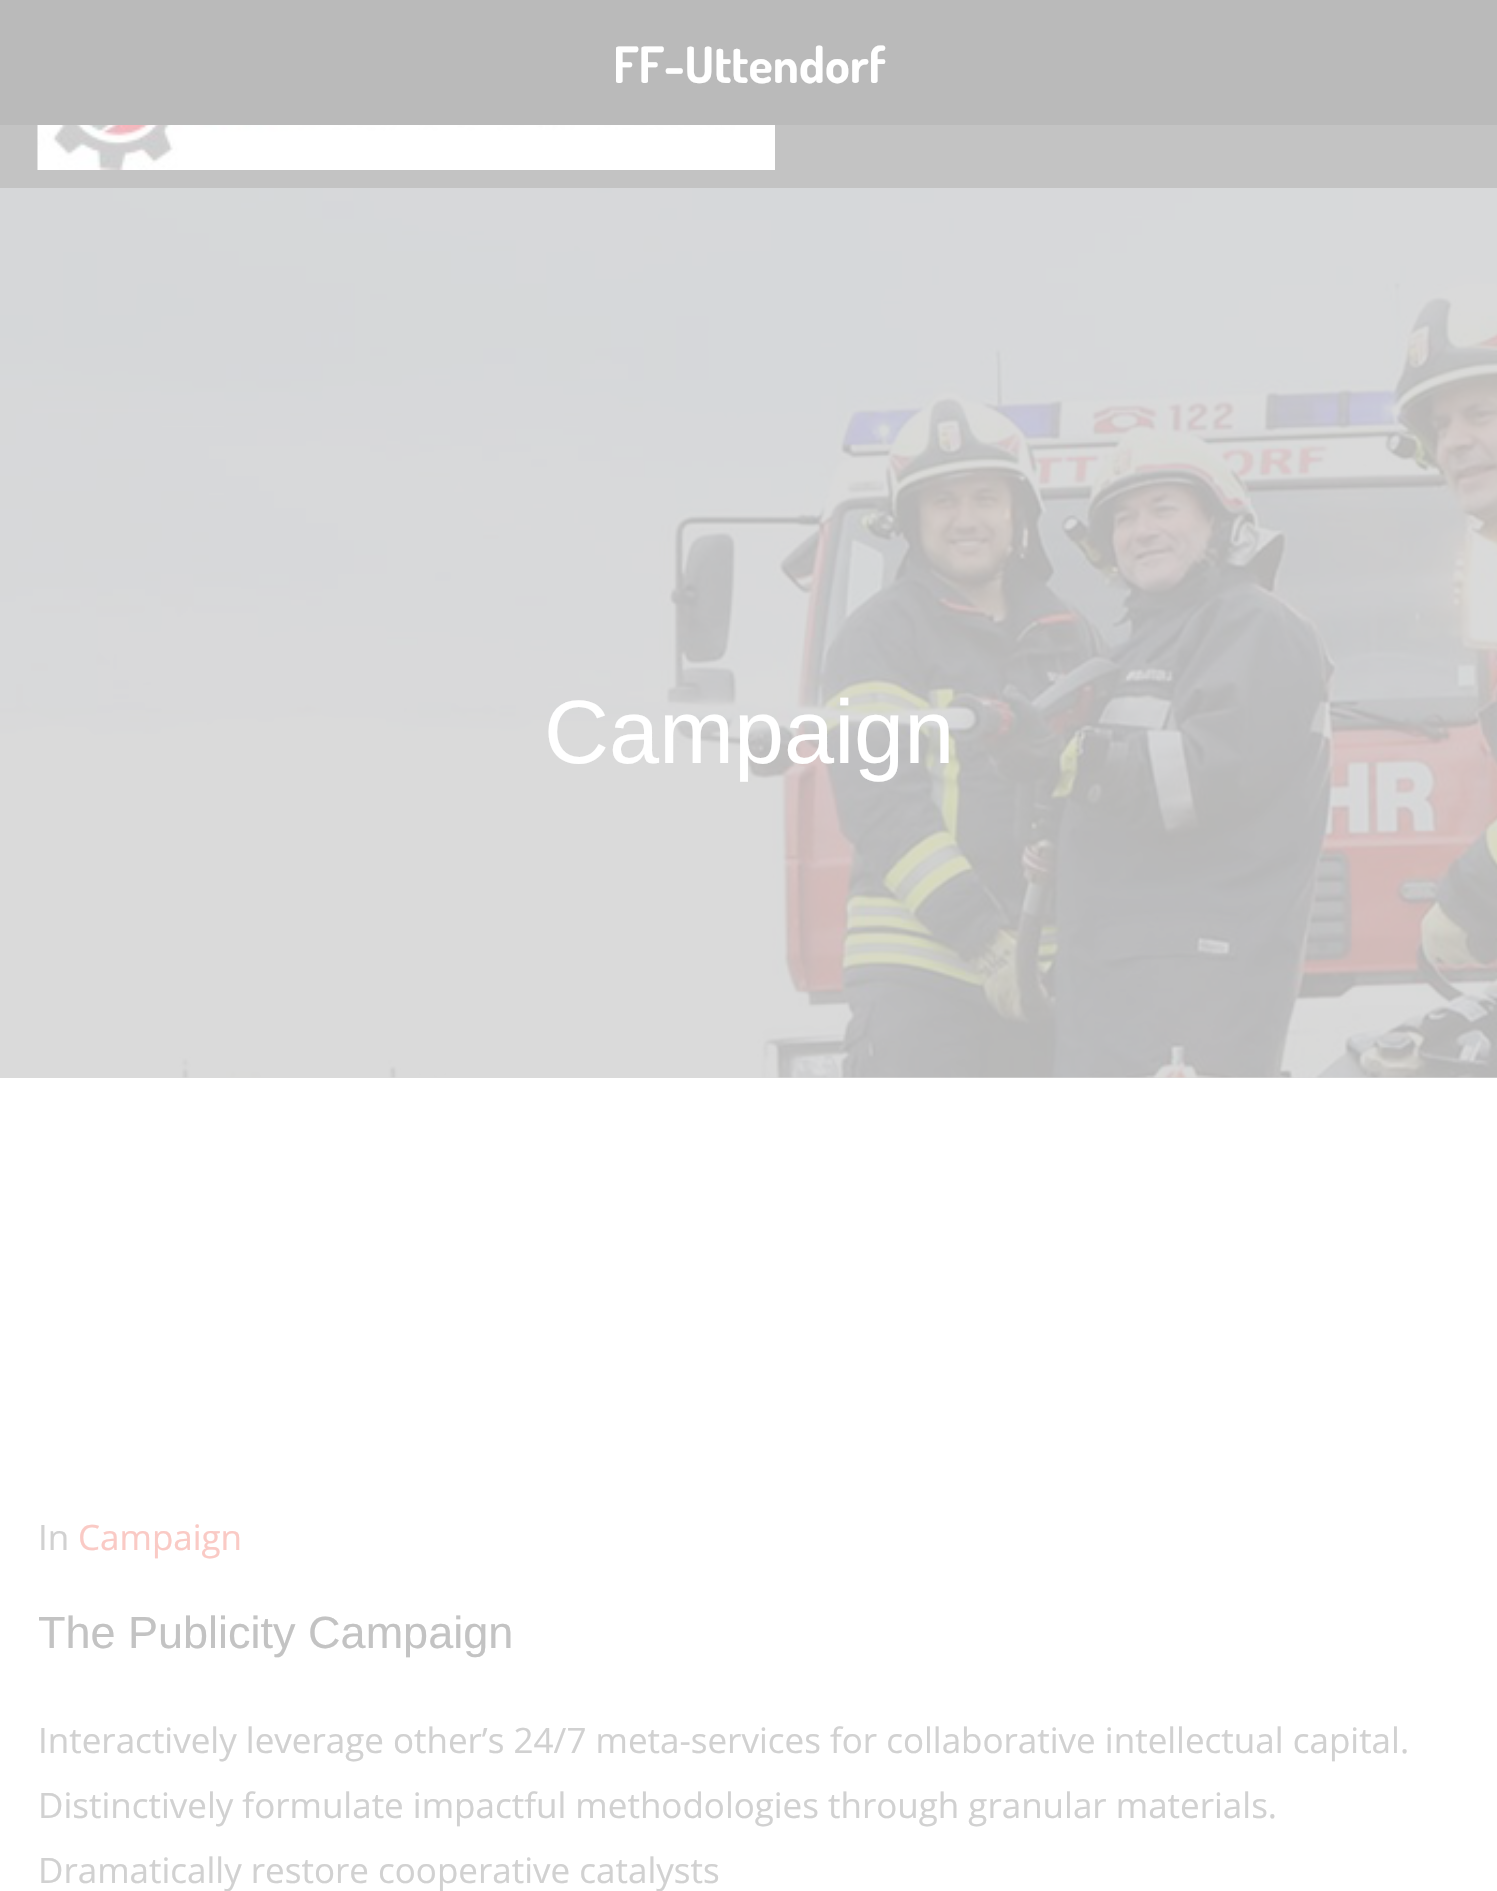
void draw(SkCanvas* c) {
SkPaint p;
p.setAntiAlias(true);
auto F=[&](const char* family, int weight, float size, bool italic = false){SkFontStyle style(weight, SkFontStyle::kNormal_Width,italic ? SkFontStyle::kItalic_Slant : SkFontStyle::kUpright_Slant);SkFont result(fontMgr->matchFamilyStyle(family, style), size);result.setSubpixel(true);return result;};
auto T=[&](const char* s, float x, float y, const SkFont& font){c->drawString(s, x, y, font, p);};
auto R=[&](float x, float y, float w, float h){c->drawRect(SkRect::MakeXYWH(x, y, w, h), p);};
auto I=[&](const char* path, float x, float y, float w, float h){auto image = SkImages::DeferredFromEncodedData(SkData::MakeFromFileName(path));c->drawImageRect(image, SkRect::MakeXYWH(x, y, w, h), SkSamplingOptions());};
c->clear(0xffffffff);
p.setColor(0xffdadada);
R(0,1077,1497,1);
p.setColor(0xffbababa);
R(0,0,1497,125);
auto f1 = F("Dosis",700,50);
p.setColor(0xffffffff);
T("FF-Uttendorf",613,83,f1);
p.setColor(0xffc3c3c3);
R(0,125,1497,63);
I("1.png",37,125,738,45);
I("2.png",0,188,1497,890);
auto f2 = F("Liberation Sans",400,90);
p.setColor(0xffffffff);
T("Campaign",544,763,f2);
auto f3 = F("Open Sans",400,35);
p.setColor(0xffd1d1d1);
T("In",38,1550,f3);
p.setColor(0xfffacac5);
T("Campaign",78,1550,f3);
auto f4 = F("Liberation Sans",400,45);
p.setColor(0xffc3c3c3);
T("The Publicity Campaign",38,1648,f4);
p.setColor(0xffd1d1d1);
T("Interactively leverage other’s 24/7 meta-services for collaborative intellectual capital.",38,1753,f3);
T("Distinctively formulate impactful methodologies through granular materials.",38,1818,f3);
T("Dramatically restore cooperative catalysts",38,1883,f3);
}
